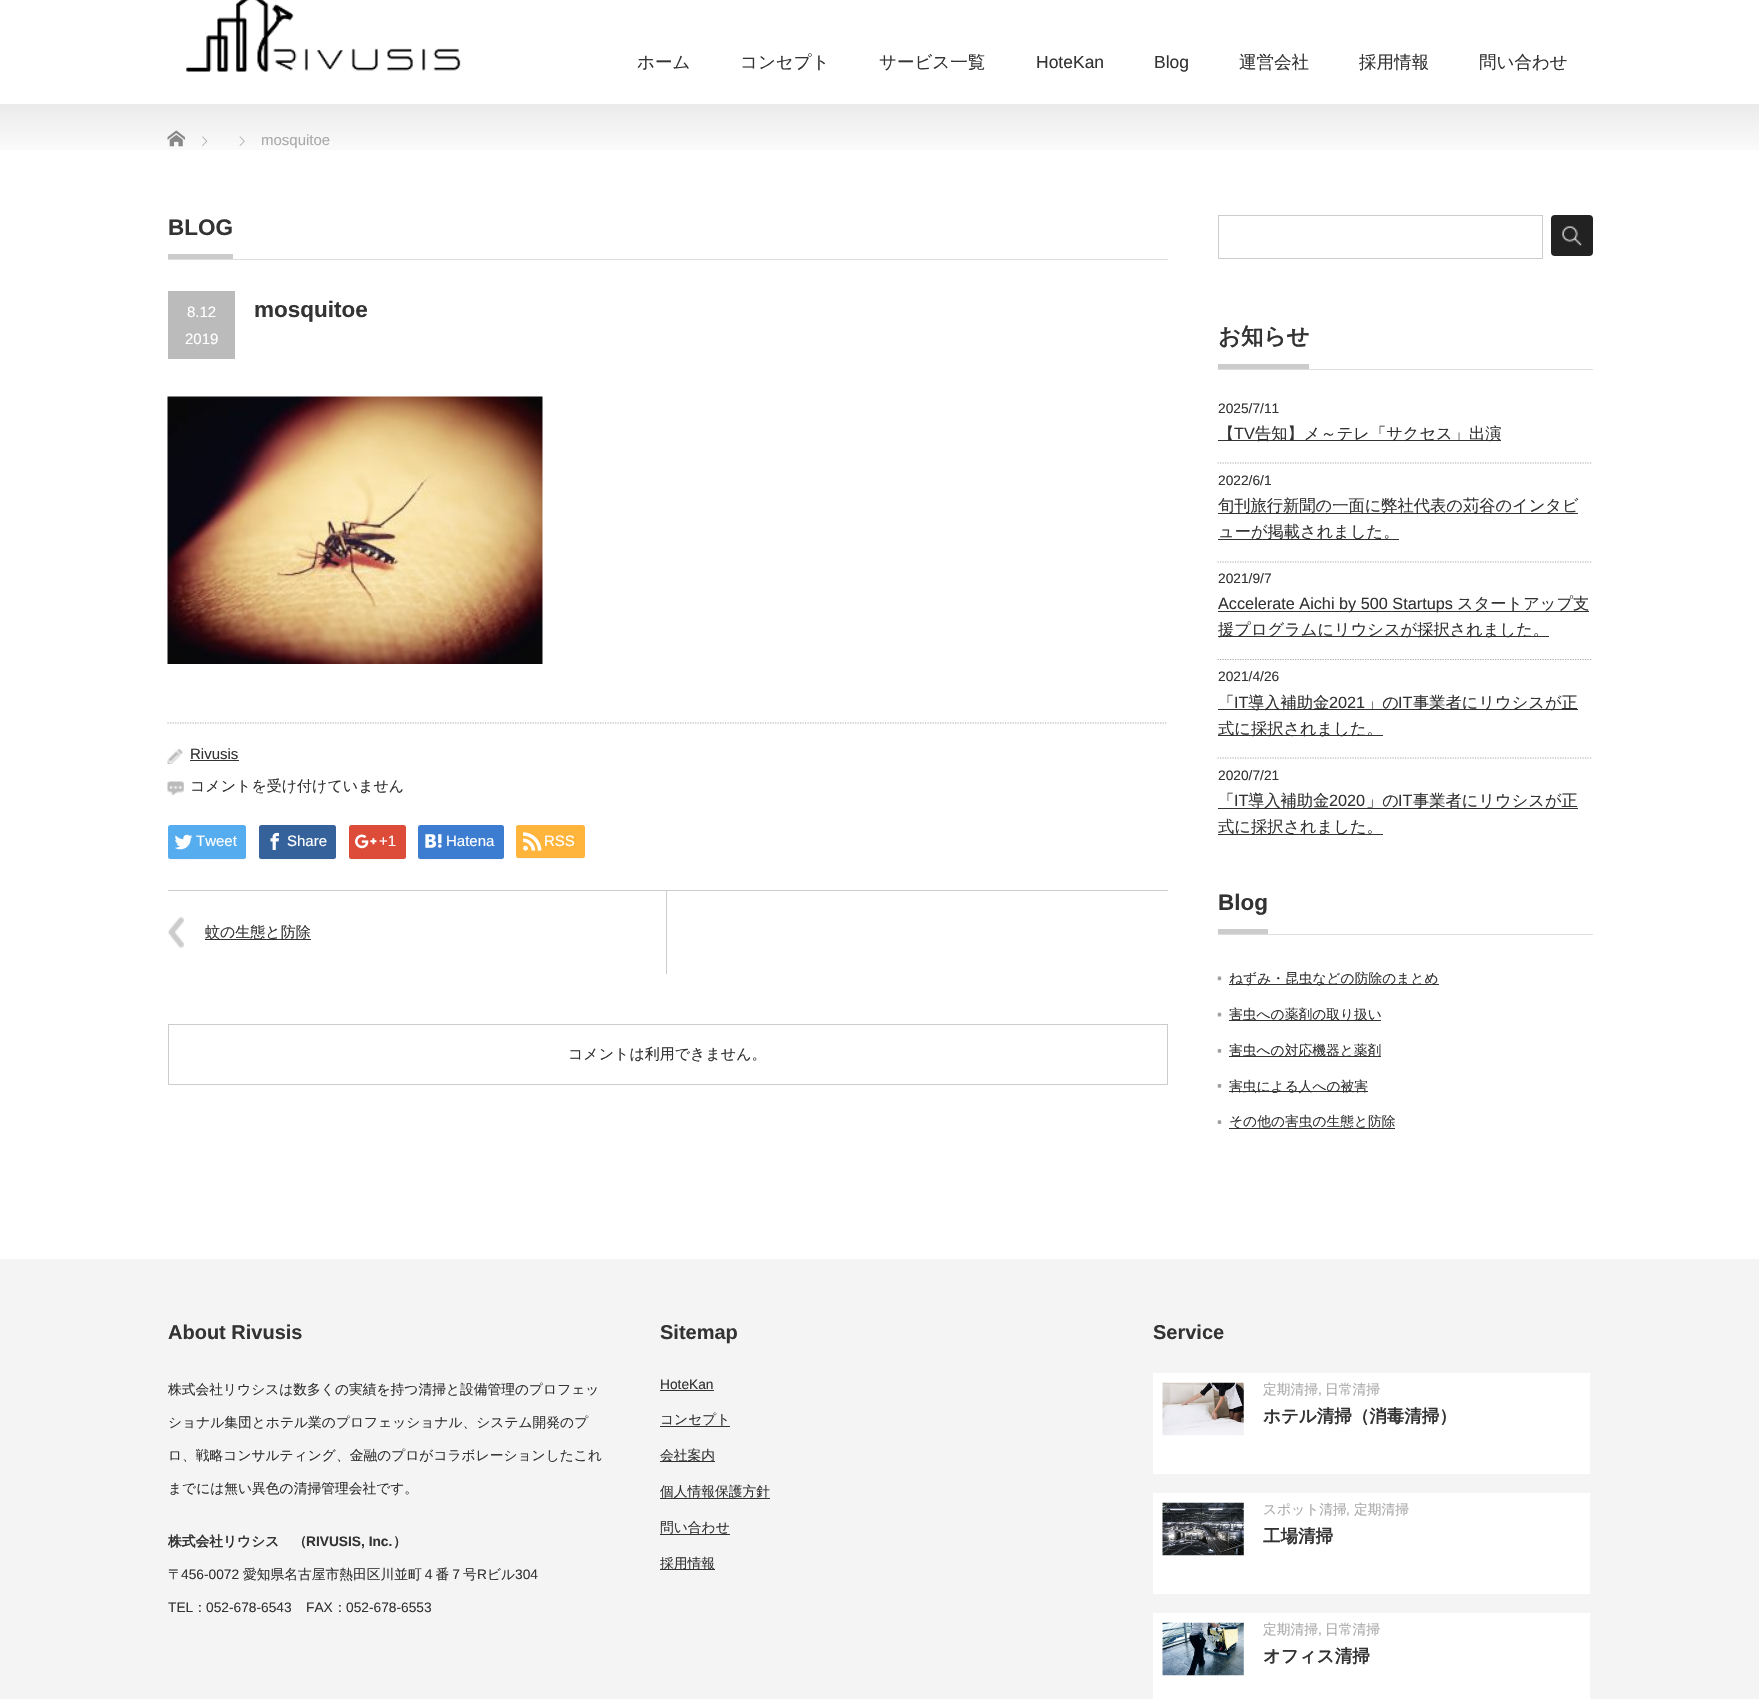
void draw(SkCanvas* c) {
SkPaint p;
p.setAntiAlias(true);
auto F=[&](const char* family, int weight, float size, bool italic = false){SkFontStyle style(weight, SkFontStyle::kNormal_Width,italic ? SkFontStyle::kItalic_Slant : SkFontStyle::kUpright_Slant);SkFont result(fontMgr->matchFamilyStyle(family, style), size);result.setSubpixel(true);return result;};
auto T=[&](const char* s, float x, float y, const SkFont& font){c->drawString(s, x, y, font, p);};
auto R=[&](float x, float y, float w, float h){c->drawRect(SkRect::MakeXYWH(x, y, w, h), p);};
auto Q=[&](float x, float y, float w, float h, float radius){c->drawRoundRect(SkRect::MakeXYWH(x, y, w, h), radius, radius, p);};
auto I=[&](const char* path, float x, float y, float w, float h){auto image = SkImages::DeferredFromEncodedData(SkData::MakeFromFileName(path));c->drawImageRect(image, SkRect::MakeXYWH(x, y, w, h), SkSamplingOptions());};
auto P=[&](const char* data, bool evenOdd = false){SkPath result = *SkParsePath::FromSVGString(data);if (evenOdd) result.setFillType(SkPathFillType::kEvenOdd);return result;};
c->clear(0xffffffff);
I("1.png",186,0,275,72);
auto f1 = F("WenQuanYi Zen Hei",500,17.5);
p.setColor(0xff333333);
T("ホーム",637,68,f1);
T("コンセプト",740,68,f1);
T("サービス一覧",879,68,f1);
auto f2 = F("Liberation Sans",400,17.5);
T("HoteKan",1036,68,f2);
T("Blog",1154,68,f2);
T("運営会社",1239,68,f1);
T("採用情報",1359,68,f1);
T("問い合わせ",1479,68,f1);
I("2.png",0,104,1759,46);
I("3.png",167,130,18,17);
I("4.png",202,136,6,10);
I("5.png",239,136,6,10);
auto f3 = F("Liberation Sans",400,15);
p.setColor(0xffaaaaaa);
T("mosquitoe",261,145,f3);
p.setColor(0xffdddddd);
R(168,259,1000,1);
p.setColor(0xffcccccc);
R(168,254,65,5);
auto f4 = F("Liberation Sans",700,22.5);
p.setColor(0xff333333);
T("BLOG",168,235,f4);
p.setColor(0xffbbbbbb);
R(168,291,67,68);
p.setColor(0xffffffff);
T("8.12",187,317,f3);
T("2019",185,344,f3);
p.setColor(0xff333333);
T("mosquitoe",254,317,f4);
I("6.png",167,396,376,268);
p.setStroke(true);
p.setStrokeWidth(1.2);
p.setColor(0xffaaaaaa);
p.setPathEffect(SkDashPathEffect::Make({{1.25f,1.25f}}, 0));
c->drawPath(P("M167.5 723h1000"),p);
p.setPathEffect(nullptr);
I("7.png",167,749,16,15);
p.setStroke(false);
p.setColor(0xff333333);
T("Rivusis",190,759,f3);
R(190,760,49,1);
I("8.png",167,781,17,15);
auto f5 = F("WenQuanYi Zen Hei",500,15);
T("コメントを受け付けていません",190,791,f5);
p.setColor(0xfff7f7f7);
c->drawPath(P("M168 858l1 2c2 1 23 0 26 0h49l2-3l-1 2h-75z"),p);
p.setColor(0xff55acee);
Q(168,825,78,34,2.5);
I("9.png",174,834,19,16);
p.setColor(0xffffffff);
T("Tweet",196,846,f3);
p.setColor(0xfff7f7f7);
c->drawPath(P("M259 857c0 1 1 2 2 3h73c1-1 2-2 2-3l-1 2h-62c0 0-12 2-14-2z"),p);
p.setColor(0xff35629a);
Q(259,825,77,34,2.5);
I("10.png",270,832,9,18);
p.setColor(0xffffffff);
T("Share",287,846,f3);
p.setColor(0xfff7f7f7);
c->drawPath(P("M349 857c0 5 10 3 11 3h35c1 0 11 2 11-3l-2 2h-53z"),p);
p.setColor(0xffdd4b39);
Q(349,825,57,34,2.5);
I("11.png",355,834,22,15);
p.setColor(0xffffffff);
T("+1",379,846,f3);
p.setColor(0xfff7f7f7);
c->drawPath(P("M418 858c1 4 12 2 16 2h54c18 0 16 3 16-12v-21v24c0 2 1 8-3 8h-82z"),p);
p.setColor(0xff3c7dd1);
Q(418,825,86,34,2.5);
I("12.png",425,834,17,14);
p.setColor(0xffffffff);
T("Hatena",446,846,f3);
p.setColor(0xfff7f7f7);
c->drawPath(P("M516 827v25c0 2-1 7 2 7h65c2 0 2-2 2-4c0 4-8 3-13 3h-43c-11 0-13 2-13-8z"),p);
p.setColor(0xffffb53c);
Q(516,825,69,33,2.5);
I("13.png",523,832,19,19);
p.setColor(0xffffffff);
T("RSS",544,846,f3);
p.setColor(0xffcccccc);
R(168,890,1000,1);
I("14.png",167,916,17,32);
R(666,891,1,83);
p.setColor(0xff333333);
R(205,939,106,1);
T("蚊の生態と防除",205,937,f5);
p.setStroke(true);
p.setStrokeWidth(1);
p.setColor(0xffcccccc);
c->drawRect(SkRect::MakeXYWH(168.5,1024.5,999,60),p);
p.setStroke(false);
p.setColor(0xff333333);
T("コメントは利用できません。",568,1059,f5);
p.setStroke(true);
p.setColor(0xffcccccc);
c->drawRect(SkRect::MakeXYWH(1218.5,215.5,324,43),p);
p.setStroke(false);
p.setColor(0xff222222);
Q(1551,215,42,41,4);
I("15.png",1562,226,20,20);
p.setColor(0xffdddddd);
R(1218,369,375,1);
p.setColor(0xffcccccc);
R(1218,364,91,5);
auto f6 = F("WenQuanYi Zen Hei",700,22.5);
p.setColor(0xff333333);
T("お知らせ",1218,344,f6);
p.setStroke(true);
p.setStrokeWidth(1.2);
p.setColor(0xffaaaaaa);
p.setPathEffect(SkDashPathEffect::Make({{1.25f,1.25f}}, 0));
c->drawPath(P("M1217.5 463h375"),p);
p.setPathEffect(nullptr);
auto f7 = F("Liberation Sans",400,13.75);
p.setStroke(false);
p.setColor(0xff333333);
T("2025/7/11",1218,413,f7);
R(1218,440,283,1);
auto f8 = F("WenQuanYi Zen Hei",500,16.25);
T("【",1218,439,f8);
auto f9 = F("Liberation Sans",400,16.25);
T("TV",1234,439,f9);
T("告知】メ～テレ「サクセス」出演",1255,439,f8);
p.setStroke(true);
p.setColor(0xffaaaaaa);
p.setPathEffect(SkDashPathEffect::Make({{1.25f,1.25f}}, 0));
c->drawPath(P("M1217.5 562h375"),p);
p.setPathEffect(nullptr);
p.setStroke(false);
p.setColor(0xff333333);
T("2022/6/1",1218,485,f7);
R(1218,513,360,1);
T("旬刊旅行新聞の一面に弊社代表の苅谷のインタビ",1218,511,f8);
R(1218,539,181,1);
T("ューが掲載されました。",1218,537,f8);
p.setStroke(true);
p.setColor(0xffaaaaaa);
p.setPathEffect(SkDashPathEffect::Make({{1.25f,1.25f}}, 0));
c->drawPath(P("M1217.5 659.5h375"),p);
p.setPathEffect(nullptr);
p.setStroke(false);
p.setColor(0xff333333);
T("2021/9/7",1218,583,f7);
R(1218,611,371,1);
T("Accelerate Aichi by 500 Startups",1218,609,f9);
T("スタートアップ支",1457,609,f8);
R(1218,636,331,1);
T("援プログラムにリウシスが採択されました。",1218,635,f8);
p.setStroke(true);
p.setColor(0xffaaaaaa);
p.setPathEffect(SkDashPathEffect::Make({{1.25f,1.25f}}, 0));
c->drawPath(P("M1217.5 758h375"),p);
p.setPathEffect(nullptr);
p.setStroke(false);
p.setColor(0xff333333);
T("2021/4/26",1218,681,f7);
T("「",1218,708,f8);
T("IT",1234,708,f9);
R(1218,709,360,1);
T("導入補助金",1248,708,f8);
T("2021",1329,708,f9);
T("」の",1366,708,f8);
T("IT",1398,708,f9);
T("事業者にリウシスが正",1413,708,f8);
R(1218,735,165,1);
T("式に採択されました。",1218,734,f8);
T("2020/7/21",1218,780,f7);
T("「",1218,806,f8);
T("IT",1234,806,f9);
R(1218,808,360,1);
T("導入補助金",1248,806,f8);
T("2020",1329,806,f9);
T("」の",1366,806,f8);
T("IT",1398,806,f9);
T("事業者にリウシスが正",1413,806,f8);
R(1218,834,165,1);
T("式に採択されました。",1218,832,f8);
p.setColor(0xffdddddd);
R(1218,934,375,1);
p.setColor(0xffcccccc);
R(1218,929,50,5);
p.setColor(0xff333333);
T("Blog",1218,910,f4);
I("16.png",1217,976,5,5);
R(1229,984,210,1);
auto f10 = F("WenQuanYi Zen Hei",500,13.75);
T("ねずみ・昆虫などの防除のまとめ",1229,983,f10);
I("17.png",1217,1012,5,5);
R(1229,1020,152,1);
T("害虫への薬剤の取り扱い",1229,1019,f10);
I("18.png",1217,1049,5,4);
R(1229,1056,152,1);
T("害虫への対応機器と薬剤",1229,1055,f10);
I("18.png",1217,1084,5,4);
R(1229,1091,139,1);
T("害虫による人への被害",1229,1091,f10);
I("19.png",1217,1120,5,4);
R(1229,1128,166,1);
T("その他の害虫の生態と防除",1229,1126,f10);
p.setColor(0xfff4f4f4);
R(0,1259,1759,440);
auto f11 = F("Liberation Sans",700,20);
p.setColor(0xff333333);
T("About Rivusis",168,1339,f11);
T("株式会社リウシスは数多くの実績を持つ清掃と設備管理のプロフェッ",168,1394,f10);
T("ショナル集団とホテル業のプロフェッショナル、システム開発のプ",168,1427,f10);
T("ロ、戦略コンサルティング、金融のプロがコラボレーションしたこれ",168,1460,f10);
T("までには無い異色の清掃管理会社です。",168,1493,f10);
auto f12 = F("WenQuanYi Zen Hei",700,13.75);
T("株式会社リウシス　（",168,1546,f12);
auto f13 = F("Liberation Sans",700,13.75);
T("RIVUSIS, Inc.",306,1546,f13);
T("）",393,1546,f12);
T("〒",168,1579,f10);
T("456-0072",181,1579,f7);
T("愛知県名古屋市熱田区川並町４番７号",243,1579,f10);
T("R",477,1579,f7);
T("ビル",487,1579,f10);
T("304",515,1579,f7);
T("TEL",168,1612,f7);
T("：",193,1612,f10);
T("052-678-6543",206,1612,f7);
T("FAX",306,1612,f7);
T("：",333,1612,f10);
T("052-678-6553",346,1612,f7);
T("Sitemap",660,1339,f11);
T("HoteKan",660,1389,f7);
R(660,1390,54,1);
T("コンセプト",660,1424,f10);
R(660,1426,70,1);
R(660,1461,55,1);
T("会社案内",660,1460,f10);
R(660,1498,110,1);
T("個人情報保護方針",660,1496,f10);
T("問い合わせ",660,1532,f10);
R(660,1534,70,1);
R(660,1569,55,1);
T("採用情報",660,1568,f10);
T("Service",1153,1339,f11);
p.setColor(0xffffffff);
R(1153,1373,437,101);
I("20.png",1162,1382,82,54);
p.setColor(0xffaaaaaa);
T("定期清掃",1263,1394,f10);
T(",",1318,1394,f7);
T("日常清掃",1325,1394,f10);
auto f14 = F("WenQuanYi Zen Hei",700,17.5);
p.setColor(0xff333333);
T("ホテル清掃（消毒清掃）",1263,1422,f14);
p.setColor(0xffffffff);
R(1153,1493,437,101);
I("21.png",1162,1502,82,54);
p.setColor(0xffaaaaaa);
T("スポット清掃",1263,1514,f10);
T(",",1346,1514,f7);
T("定期清掃",1354,1514,f10);
p.setColor(0xff333333);
T("工場清掃",1263,1542,f14);
p.setColor(0xffffffff);
R(1153,1613,437,86);
I("22.png",1162,1622,82,54);
p.setColor(0xffaaaaaa);
T("定期清掃",1263,1634,f10);
T(",",1318,1634,f7);
T("日常清掃",1325,1634,f10);
p.setColor(0xff333333);
T("オフィス清掃",1263,1662,f14);
}
